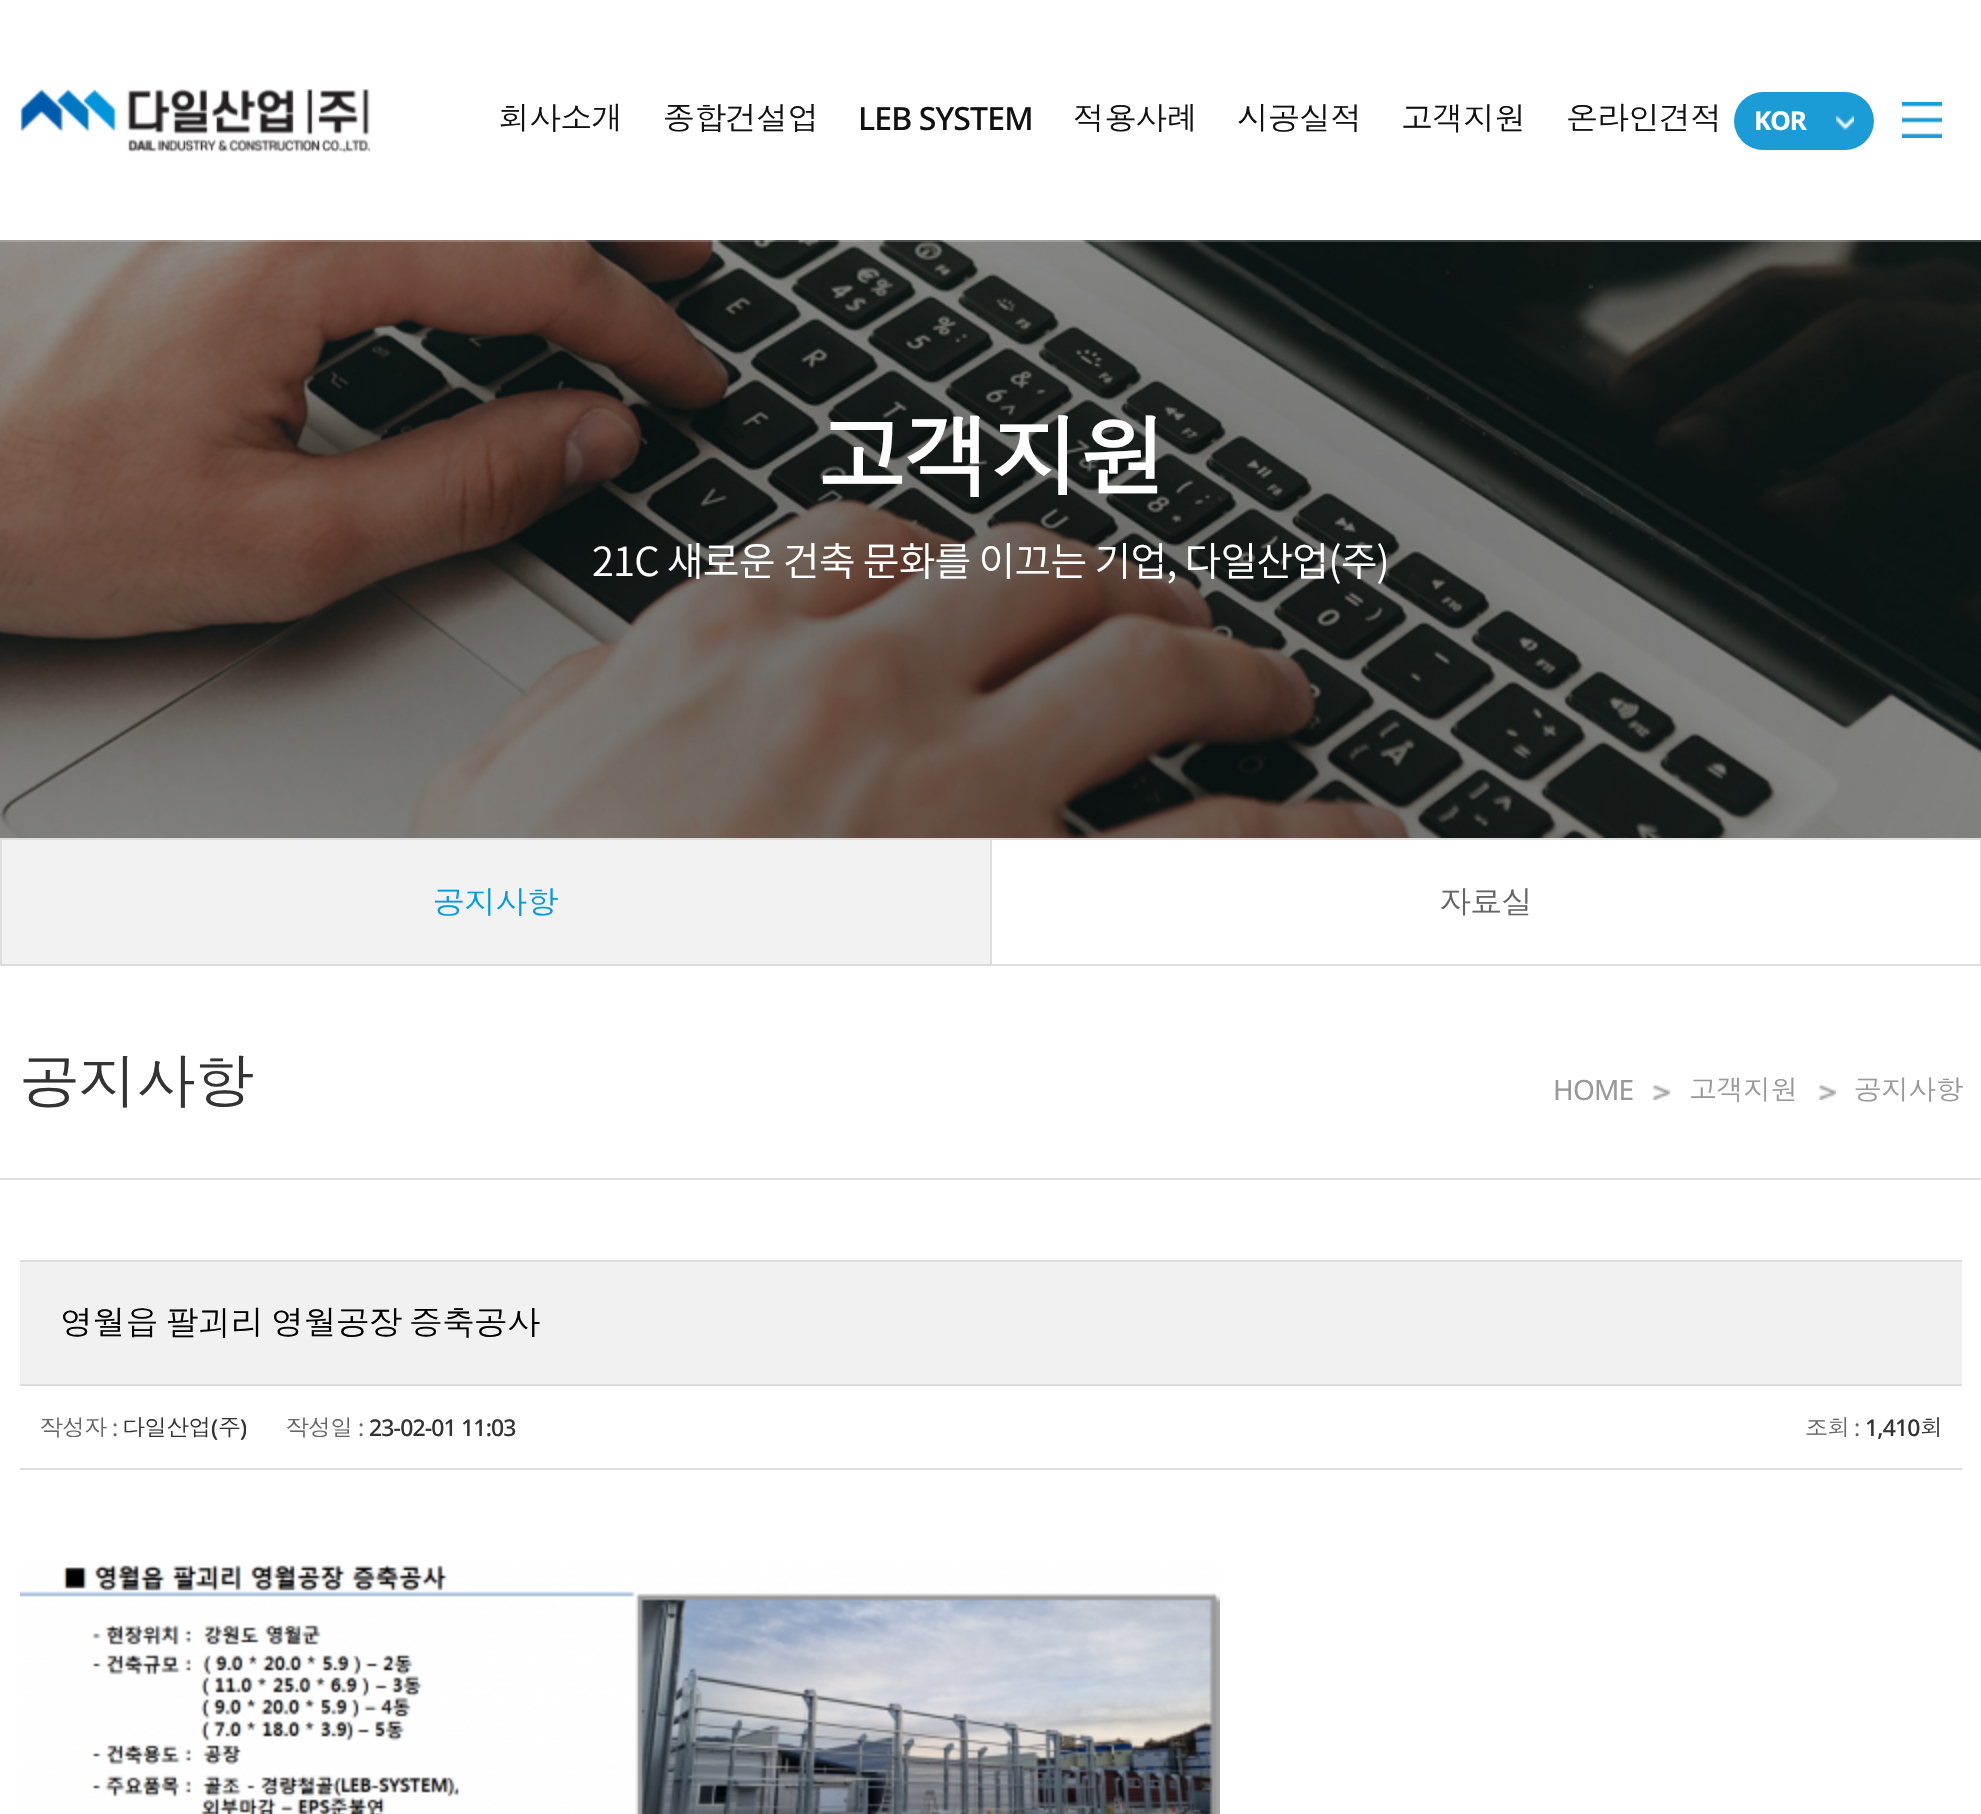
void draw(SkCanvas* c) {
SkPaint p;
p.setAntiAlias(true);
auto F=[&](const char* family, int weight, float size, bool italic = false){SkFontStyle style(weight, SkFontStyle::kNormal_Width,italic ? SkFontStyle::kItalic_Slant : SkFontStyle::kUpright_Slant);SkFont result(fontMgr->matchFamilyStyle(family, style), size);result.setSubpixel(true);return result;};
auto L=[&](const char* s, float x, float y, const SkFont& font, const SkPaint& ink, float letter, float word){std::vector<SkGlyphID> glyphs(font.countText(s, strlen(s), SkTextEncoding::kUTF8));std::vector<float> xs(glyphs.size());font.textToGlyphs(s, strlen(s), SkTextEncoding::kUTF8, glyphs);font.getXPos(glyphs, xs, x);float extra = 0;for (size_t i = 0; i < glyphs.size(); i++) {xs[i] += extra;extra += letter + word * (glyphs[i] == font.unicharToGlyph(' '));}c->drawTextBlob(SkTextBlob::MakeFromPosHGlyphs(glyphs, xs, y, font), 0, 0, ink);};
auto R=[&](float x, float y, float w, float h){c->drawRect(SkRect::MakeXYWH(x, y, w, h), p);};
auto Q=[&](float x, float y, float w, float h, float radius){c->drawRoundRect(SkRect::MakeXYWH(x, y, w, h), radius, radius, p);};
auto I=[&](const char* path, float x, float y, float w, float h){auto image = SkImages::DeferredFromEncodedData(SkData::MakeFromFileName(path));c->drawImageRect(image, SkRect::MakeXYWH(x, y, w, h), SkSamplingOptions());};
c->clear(0xffffffff);
I("1.png",20,89,350,64);
auto f1 = F("Dotum",400,32);
p.setColor(0xff111111);
L("회사소개",498,130,f1,p,-.85,0);
L("종합건설업",663,130,f1,p,-.85,0);
auto f2 = F("Noto Sans",500,32);
L("LEB SYSTEM",858,130,f2,p,-.85,0);
L("적용사례",1073,130,f1,p,-.85,0);
L("시공실적",1237,130,f1,p,-.85,0);
L("고객지원",1401,130,f1,p,-.85,0);
L("온라인견적",1566,130,f1,p,-.85,0);
p.setColor(0xff1b9cd7);
Q(1734,92,140,58,29);
auto f3 = F("Noto Sans",700,26);
p.setColor(0xffffffff);
L("KOR",1754,130,f3,p,-1,0);
I("2.png",1836,115,18,15);
I("3.png",1902,102,40,36);
I("4.png",0,240,1981,598);
p.setColor(0x33ffffff);
R(0,240,1981,2);
auto f4 = F("Dotum",700,90);
p.setColor(0xffffffff);
L("고객지원",816,490,f4,p,-2.5,0);
auto f5 = F("Noto Sans KR",300,40);
L("21C 새로운 건축 문화를 이끄는 기업, 다일산업(주)",592,576,f5,p,-.85,0);
p.setColor(0xffdddddd);
R(0,838,1981,2);
R(990,838,2,128);
R(0,838,2,128);
p.setColor(0xfff2f2f2);
R(2,840,988,124);
p.setColor(0xffdddddd);
R(2,964,988,2);
p.setColor(0xff019ce3);
L("공지사항",433,914,f1,p,-.85,0);
p.setColor(0xffdddddd);
R(1980,838,1,128);
R(992,964,988,2);
p.setColor(0xff666666);
L("자료실",1439,914,f1,p,-.85,0);
p.setColor(0xffdddddd);
R(0,1178,1981,2);
auto f6 = F("Dotum",400,60);
p.setColor(0xff333333);
L("공지사항",20,1104,f6,p,-2,0);
auto f7 = F("Noto Sans",400,28);
p.setColor(0xff999999);
L("HOME",1553,1100,f7,p,-.85,0);
I("5.png",1652,1084,18,16);
auto f8 = F("Dotum",400,28);
L("고객지원",1689,1100,f8,p,-.85,0);
I("5.png",1818,1084,18,16);
L("공지사항",1854,1100,f8,p,-.85,0);
p.setColor(0xfff1f1f1);
R(20,1262,1942,122);
p.setColor(0xffdddddd);
R(20,1260,1942,2);
R(20,1384,1942,2);
auto f9 = F("Dotum",400,33.6);
p.setColor(0xff000000);
L("영월읍 팔괴리 영월공장 증축공사",60,1335,f9,p,-1,-2.5);
p.setColor(0xffdddddd);
R(20,1468,1942,2);
auto f10 = F("Dotum",400,23);
p.setColor(0xff666666);
L("작성자",40,1436,f10,p,-.85,0);
auto f11 = F("Noto Sans",400,23);
L(":",112,1436,f11,p,-.85,0);
p.setColor(0xff333333);
L("다일산업",122,1436,f10,p,-.85,0);
auto f12 = F("Noto Sans",500,23);
L("(",211,1436,f12,p,-.85,0);
L("주",218,1436,f10,p,-.85,0);
c->save();
c->clipRect(SkRect::MakeXYWH(40,1406,206,42));
L(")",240,1436,f12,p,-.85,0);
c->restore();
p.setColor(0xff666666);
L("작성일",286,1436,f10,p,-.85,0);
L(":",358,1436,f11,p,-.85,0);
p.setColor(0xff333333);
L("23-02-01 11:03",369,1436,f12,p,-.85,0);
p.setColor(0xff666666);
L("조회",1805,1436,f10,p,-.85,0);
L(":",1854,1436,f11,p,-.85,0);
p.setColor(0xff333333);
L("1,410",1865,1436,f12,p,-.85,0);
L("회",1920,1436,f10,p,-.85,0);
I("6.png",20,1565,1200,249);
}
